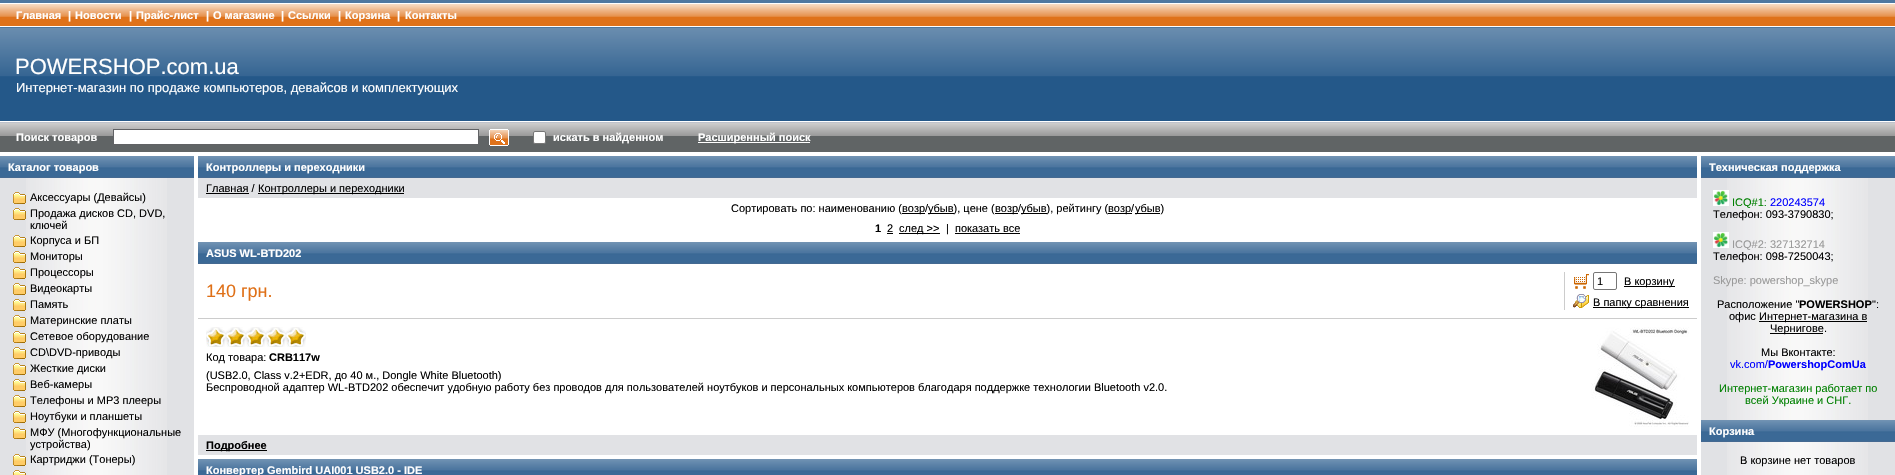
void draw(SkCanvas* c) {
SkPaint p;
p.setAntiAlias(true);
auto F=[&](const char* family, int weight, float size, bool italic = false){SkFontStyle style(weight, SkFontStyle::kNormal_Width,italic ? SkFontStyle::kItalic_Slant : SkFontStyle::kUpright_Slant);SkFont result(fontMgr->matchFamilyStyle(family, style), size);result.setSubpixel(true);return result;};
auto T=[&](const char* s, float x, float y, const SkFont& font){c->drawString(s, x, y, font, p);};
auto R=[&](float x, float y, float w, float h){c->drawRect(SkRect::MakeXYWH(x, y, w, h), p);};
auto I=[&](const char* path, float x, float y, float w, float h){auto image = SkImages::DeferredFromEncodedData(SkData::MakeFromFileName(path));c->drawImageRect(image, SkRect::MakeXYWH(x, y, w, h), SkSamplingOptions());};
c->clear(0xffffffff);
p.setColor(0xff4f78a0);
R(0,0,1895,3);
I("1.png",0,4,1895,22);
auto f1 = F("Liberation Sans",700,11);
p.setColor(0xffffffff);
T("Главная",16,19,f1);
T("|",68,19,f1);
T("Новости",75,19,f1);
T("|",129,19,f1);
T("Прайс-лист",136,19,f1);
T("|",206,19,f1);
T("О магазине",213,19,f1);
T("|",281,19,f1);
T("Cсылки",288,19,f1);
T("|",338,19,f1);
T("Корзина",345,19,f1);
T("|",397,19,f1);
T("Контакты",405,19,f1);
I("2.png",0,27,948,94);
auto f2 = F("Liberation Sans",400,22);
T("POWERSHOP.com.ua",15,74,f2);
auto f3 = F("Liberation Sans",400,13);
T("Интернет-магазин по продаже компьютеров, девайсов и комплектующих",16,92,f3);
I("3.png",948,27,947,94);
I("4.png",0,122,1895,30);
T("Поиск товаров",16,141,f1);
c->drawRect(SkRect::MakeXYWH(113.5,129.5,365,15),p);
p.setStroke(true);
p.setStrokeWidth(1);
p.setColor(0xff616265);
c->drawRect(SkRect::MakeXYWH(113.5,129.5,365,15),p);
I("5.png",489,129,20,17);
p.setStroke(false);
p.setColor(0xffffffff);
c->drawRoundRect(SkRect::MakeXYWH(533.5,131.5,12,12),1.5,1.5,p);
p.setStroke(true);
p.setColor(0xff767676);
c->drawRoundRect(SkRect::MakeXYWH(533.5,131.5,12,12),1.5,1.5,p);
p.setStroke(false);
p.setColor(0xffffffff);
T("искать в найденном",553,141,f1);
R(698,142,112,1);
T("Расширенный поиск",698,141,f1);
p.setColor(0xffe1e2e5);
R(0,178,194,297);
I("6.png",26,178,141,297);
p.setColor(0xff446991);
R(0,177,194,1);
I("7.png",0,156,194,21);
p.setColor(0xffffffff);
T("Каталог товаров",8,171,f1);
I("8.png",13,192,13,12);
auto f4 = F("Liberation Sans",400,11);
p.setColor(0xff000000);
T("Аксессуары (Девайсы)",30,201,f4);
I("8.png",13,208,13,12);
T("Продажа дисков CD, DVD,",30,217,f4);
T("ключей",30,229,f4);
I("8.png",13,235,13,12);
T("Корпуса и БП",30,244,f4);
I("8.png",13,251,13,12);
T("Мониторы",30,260,f4);
I("8.png",13,267,13,12);
T("Процессоры",30,276,f4);
I("8.png",13,283,13,12);
T("Видеокарты",30,292,f4);
I("8.png",13,299,13,12);
T("Память",30,308,f4);
I("8.png",13,315,13,12);
T("Материнские платы",30,324,f4);
I("8.png",13,331,13,12);
T("Сетевое оборудование",30,340,f4);
I("8.png",13,347,13,12);
T("CD\\DVD-приводы",30,356,f4);
I("8.png",13,363,13,12);
T("Жесткие диски",30,372,f4);
I("8.png",13,379,13,12);
T("Веб-камеры",30,388,f4);
I("8.png",13,395,13,12);
T("Телефоны и MP3 плееры",30,404,f4);
I("8.png",13,411,13,12);
T("Ноутбуки и планшеты",30,420,f4);
I("8.png",13,427,13,12);
T("МФУ (Многофункциональные",30,436,f4);
T("устройства)",30,448,f4);
I("8.png",13,454,13,12);
T("Картриджи (Тонеры)",30,463,f4);
I("9.png",13,470,13,5);
p.setColor(0xff446991);
R(198,177,1499,1);
I("10.png",198,156,1499,21);
p.setColor(0xffffffff);
T("Контроллеры и переходники",206,171,f1);
p.setColor(0xffe1e2e5);
R(198,178,1499,20);
p.setColor(0xff000000);
T("Главная /",206,192,f4);
R(206,193,43,1);
R(258,193,146,1);
T("Контроллеры и переходники",258,192,f4);
T("Сортировать по: наименованию (",731,212,f4);
R(902,213,23,1);
T("возр/",902,212,f4);
R(928,213,26,1);
T("убыв), цене (",928,212,f4);
R(995,213,23,1);
T("возр/",995,212,f4);
R(1021,213,26,1);
T("убыв), рейтингу (",1021,212,f4);
R(1108,213,24,1);
T("возр/",1108,212,f4);
R(1135,213,25,1);
T("убыв)",1135,212,f4);
T("1",875,232,f1);
T("2",887,232,f4);
R(887,233,6,1);
R(899,233,41,1);
T("след >>",899,232,f4);
T("|",946,232,f4);
T("показать все",955,232,f4);
R(955,233,65,1);
p.setColor(0xff446991);
R(198,263,1499,1);
I("10.png",198,242,1499,21);
p.setColor(0xffffffff);
T("ASUS WL-BTD202",206,257,f1);
auto f5 = F("Liberation Sans",400,18);
p.setColor(0xffdf7017);
T("140 грн.",206,297,f5);
p.setColor(0xffcccccc);
R(1564,272,1,38);
I("11.png",1574,274,15,15);
p.setStroke(true);
p.setColor(0xff767676);
c->drawRoundRect(SkRect::MakeXYWH(1593.5,272.5,23,17),1.5,1.5,p);
p.setStroke(false);
p.setColor(0xff000000);
T("1",1597,285,f4);
R(1624,286,51,1);
T("В корзину",1624,285,f4);
I("12.png",1573,294,16,14);
R(1593,307,96,1);
T("В папку сравнения",1593,306,f4);
p.setColor(0xffcccccc);
R(198,318,1499,1);
I("13.png",206,327,20,20);
I("13.png",226,327,20,20);
I("13.png",246,327,20,20);
I("13.png",266,327,20,20);
I("13.png",286,327,20,20);
p.setColor(0xff000000);
T("Код товара:",206,361,f4);
T("CRB117w",269,361,f1);
T("(USB2.0, Class v.2+EDR, до 40 м., Dongle White Bluetooth)",206,379,f4);
T("Беспроводной адаптер WL-BTD202 обеспечит удобную работу без проводов для пользователей ноутбуков и персональных компьютеров благодаря поддержке технологии Bluetooth v2.0.",206,391,f4);
I("14.png",1591,327,98,100);
p.setColor(0xffe1e2e5);
R(198,435,1499,20);
p.setColor(0xff000000);
R(206,450,61,1);
T("Подробнее",206,449,f1);
I("15.png",198,459,1499,16);
p.setColor(0xffffffff);
T("Конвертер Gembird UAI001 USB2.0 - IDE",206,474,f1);
p.setColor(0xffe1e2e5);
R(1701,178,194,297);
I("6.png",1727,178,141,297);
p.setColor(0xff446991);
R(1701,177,194,1);
I("7.png",1701,156,194,21);
p.setColor(0xffffffff);
T("Техническая поддержка",1709,171,f1);
I("16.png",1713,190,16,16);
p.setColor(0xff008000);
T("ICQ#1:",1732,206,f4);
p.setColor(0xff0000ff);
T("220243574",1770,206,f4);
p.setColor(0xff000000);
T("Телефон: 093-3790830;",1713,218,f4);
I("16.png",1713,232,16,16);
p.setColor(0xff999999);
T("ICQ#2: 327132714",1732,248,f4);
p.setColor(0xff000000);
T("Телефон: 098-7250043;",1713,260,f4);
p.setColor(0xff999999);
T("Skype: powershop_skype",1713,284,f4);
p.setColor(0xff000000);
T("Расположение \"",1717,308,f4);
T("POWERSHOP",1799,308,f1);
T("\":",1872,308,f4);
T("офис",1729,320,f4);
R(1759,321,108,1);
T("Интернет-магазина в",1759,320,f4);
R(1770,333,53,1);
T("Чернигове.",1770,332,f4);
T("Мы Вконтакте:",1761,356,f4);
p.setColor(0xff0000ff);
T("vk.com/",1730,368,f4);
T("PowershopComUa",1768,368,f1);
p.setColor(0xff008000);
T("Интернет-магазин работает по",1719,392,f4);
T("всей Украине и СНГ.",1745,404,f4);
p.setColor(0xff446991);
R(1701,441,194,1);
I("7.png",1701,420,194,21);
p.setColor(0xffffffff);
T("Корзина",1709,435,f1);
p.setColor(0xff000000);
T("В корзине нет товаров",1740,464,f4);
}
